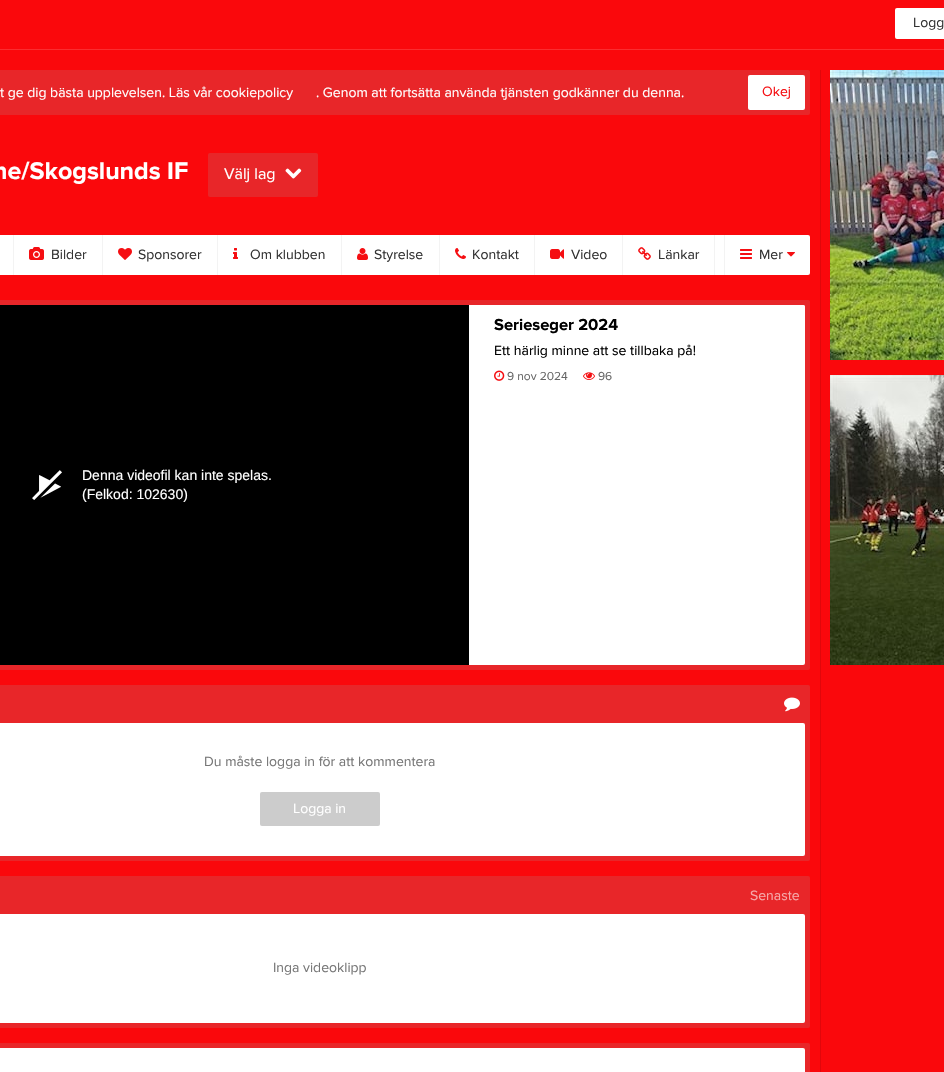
void draw(SkCanvas* c) {
SkPaint p;
p.setAntiAlias(true);
auto F=[&](const char* family, int weight, float size, bool italic = false){SkFontStyle style(weight, SkFontStyle::kNormal_Width,italic ? SkFontStyle::kItalic_Slant : SkFontStyle::kUpright_Slant);SkFont result(fontMgr->matchFamilyStyle(family, style), size);result.setSubpixel(true);return result;};
auto T=[&](const char* s, float x, float y, const SkFont& font){c->drawString(s, x, y, font, p);};
auto R=[&](float x, float y, float w, float h){c->drawRect(SkRect::MakeXYWH(x, y, w, h), p);};
auto Q=[&](float x, float y, float w, float h, float radius){c->drawRoundRect(SkRect::MakeXYWH(x, y, w, h), radius, radius, p);};
auto I=[&](const char* path, float x, float y, float w, float h){auto image = SkImages::DeferredFromEncodedData(SkData::MakeFromFileName(path));c->drawImageRect(image, SkRect::MakeXYWH(x, y, w, h), SkSamplingOptions());};
c->clear(0xfffa080c);
p.setColor(0xfffb2d30);
R(0,49,944,1);
p.setColor(0xffffffff);
Q(895,8,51,31,2);
auto f1 = F("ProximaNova",400,14);
p.setColor(0xff333333);
T("Logg",913,27,f1);
p.setColor(0xffe82629);
Q(-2,70,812,45,2);
p.setColor(0xffffffff);
T("t ge dig bästa upplevelsen. Läs vår cookiepolicy",0,97,f1);
T(". Genom att fortsätta använda tjänsten godkänner du denna.",316,97,f1);
Q(748,75,57,35,2);
p.setColor(0xfff50e12);
T("Okej",762,96,f1);
auto f2 = F("ProximaNova",700,25);
p.setColor(0xffffffff);
T("ne/Skogslunds IF",-7,179,f2);
p.setColor(0xffe82629);
Q(208,153,110,44,2);
auto f3 = F("ProximaNova",400,16);
p.setColor(0xffffffff);
T("Välj lag",224,179,f3);
I("1.png",285,168,17,11);
Q(-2,235,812,40,2);
p.setColor(0xfff3f3f3);
R(13,235,1,40);
R(102,235,1,40);
I("2.png",29,247,15,13);
p.setColor(0xff333333);
T("Bilder",51,259,f1);
p.setColor(0xfff3f3f3);
R(217,235,1,40);
I("3.png",118,248,14,12);
p.setColor(0xff333333);
T("Sponsorer",138,259,f1);
p.setColor(0xfff3f3f3);
R(341,235,1,40);
I("4.png",233,248,5,11);
p.setColor(0xff333333);
T("Om klubben",250,259,f1);
p.setColor(0xfff3f3f3);
R(439,235,1,40);
I("5.png",357,248,11,12);
p.setColor(0xff333333);
T("Styrelse",374,259,f1);
p.setColor(0xfff3f3f3);
R(534,235,1,40);
I("6.png",455,248,11,11);
p.setColor(0xff333333);
T("Kontakt",472,259,f1);
p.setColor(0xfff3f3f3);
R(622,235,1,40);
I("7.png",550,249,14,10);
p.setColor(0xff333333);
T("Video",571,259,f1);
p.setColor(0xfff3f3f3);
R(714,235,1,40);
I("8.png",638,247,13,13);
p.setColor(0xff333333);
T("Länkar",658,259,f1);
p.setColor(0xfff3f3f3);
R(724,235,1,40);
I("9.png",740,249,12,10);
p.setColor(0xff333333);
T("Mer",759,259,f1);
I("10.png",787,252,8,5);
p.setColor(0xffe72629);
Q(-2,300,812,370,2);
p.setColor(0xffffffff);
Q(-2,305,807,360,2);
Q(484,305,321,93,2);
auto f4 = F("ProximaNova",700,16.5);
p.setColor(0xff000000);
T("Serieseger 2024",494,330,f4);
T("Ett härlig minne att se tillbaka på!",494,355,f1);
I("11.png",494,370,11,11);
auto f5 = F("ProximaNova",400,12);
p.setColor(0xff666666);
T("9 nov 2024",507,380,f5);
I("12.png",583,372,12,8);
T("96",598,380,f5);
p.setColor(0xff000000);
R(0,305,469,360);
I("13.png",32,470,30,30);
auto f6 = F("Liberation Sans",400,14);
p.setColor(0xffffffff);
T("Denna videofil kan inte spelas.",82,480,f6);
T("(Felkod: 102630)",82,499,f6);
p.setColor(0xffe82629);
Q(-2,685,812,176,2);
I("14.png",784,697,16,15);
p.setColor(0xffffffff);
Q(-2,723,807,133,2);
p.setColor(0xff777777);
T("Du måste logga in för att kommentera",204,766,f1);
p.setColor(0xffcccccc);
Q(260,792,120,34,2);
p.setColor(0xffffffff);
T("Logga in",293,813,f1);
p.setColor(0xffe82629);
Q(-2,876,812,152,2);
p.setColor(0xfff6a8a9);
T("Senaste",750,900,f1);
p.setColor(0xffffffff);
Q(-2,914,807,109,2);
p.setColor(0xff777777);
T("Inga videoklipp",273,972,f1);
p.setColor(0xffe82629);
Q(-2,1043,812,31,2);
p.setColor(0xffffffff);
Q(-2,1048,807,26,2);
p.setColor(0xffe1070b);
R(820,70,1,1002);
I("15.png",830,70,114,290);
I("16.png",830,375,114,290);
}
